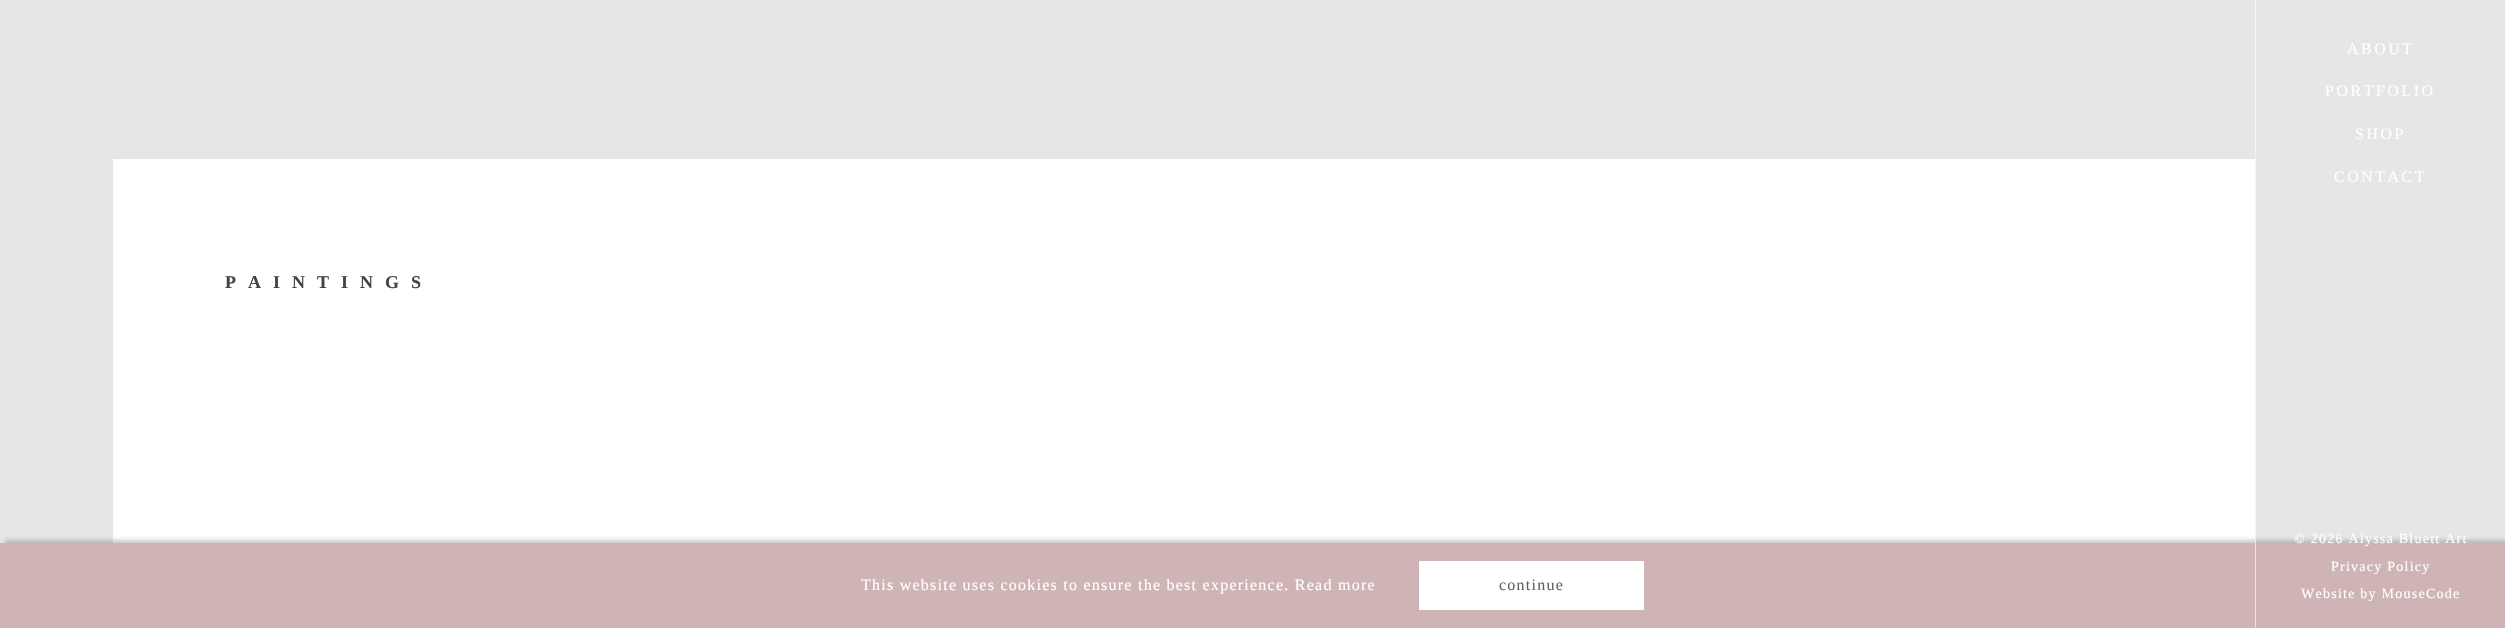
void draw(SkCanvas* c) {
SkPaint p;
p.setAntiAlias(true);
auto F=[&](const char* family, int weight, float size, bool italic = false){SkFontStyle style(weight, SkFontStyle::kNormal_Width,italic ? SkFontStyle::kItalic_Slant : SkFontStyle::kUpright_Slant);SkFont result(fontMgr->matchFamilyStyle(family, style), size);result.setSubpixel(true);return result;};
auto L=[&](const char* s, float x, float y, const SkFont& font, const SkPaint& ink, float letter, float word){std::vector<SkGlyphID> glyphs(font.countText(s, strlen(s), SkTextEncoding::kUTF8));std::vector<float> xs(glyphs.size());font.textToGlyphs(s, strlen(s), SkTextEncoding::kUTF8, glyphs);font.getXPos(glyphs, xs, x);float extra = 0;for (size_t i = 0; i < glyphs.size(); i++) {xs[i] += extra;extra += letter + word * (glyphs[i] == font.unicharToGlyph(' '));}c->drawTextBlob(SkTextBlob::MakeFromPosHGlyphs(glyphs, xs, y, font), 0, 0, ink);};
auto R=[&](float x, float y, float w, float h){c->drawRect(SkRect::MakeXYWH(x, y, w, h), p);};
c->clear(0xffe6e6e6);
p.setColor(0xffffffff);
R(113,159,2142,384);
auto f1 = F("Liberation Serif",700,18);
p.setColor(0xff444446);
L("PAINTINGS",225,288,f1,p,12,0);
p.setColor(0x33000000);
p.setMaskFilter(SkMaskFilter::MakeBlur(kNormal_SkBlurStyle, 2));
c->drawRect(SkRect::MakeXYWH(5,540,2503,84),p);
p.setMaskFilter(nullptr);
p.setColor(0xffcfb4b6);
R(0,543,2505,85);
p.setColor(0x99ffffff);
R(2255,0,1,628);
auto f2 = F("Liberation Serif",400,16);
p.setColor(0xffffffff);
L("ABOUT",2347,54,f2,p,2.5,0);
L("PORTFOLIO",2325,96,f2,p,2.5,0);
L("SHOP",2355,139,f2,p,2.5,0);
L("CONTACT",2334,182,f2,p,2.5,0);
auto f3 = F("Liberation Serif",400,14);
L("© 2026 Alyssa Bluett Art",2294,543,f3,p,1.25,0);
L("Privacy Policy",2331,571,f3,p,1.25,0);
L("Website by MouseCode",2301,598,f3,p,1.25,0);
L("This website uses cookies to ensure the best experience. Read more",861,590,f2,p,1.25,0);
R(1419,561,225,49);
p.setColor(0xff606060);
L("continue",1499,590,f2,p,1.25,0);
}
